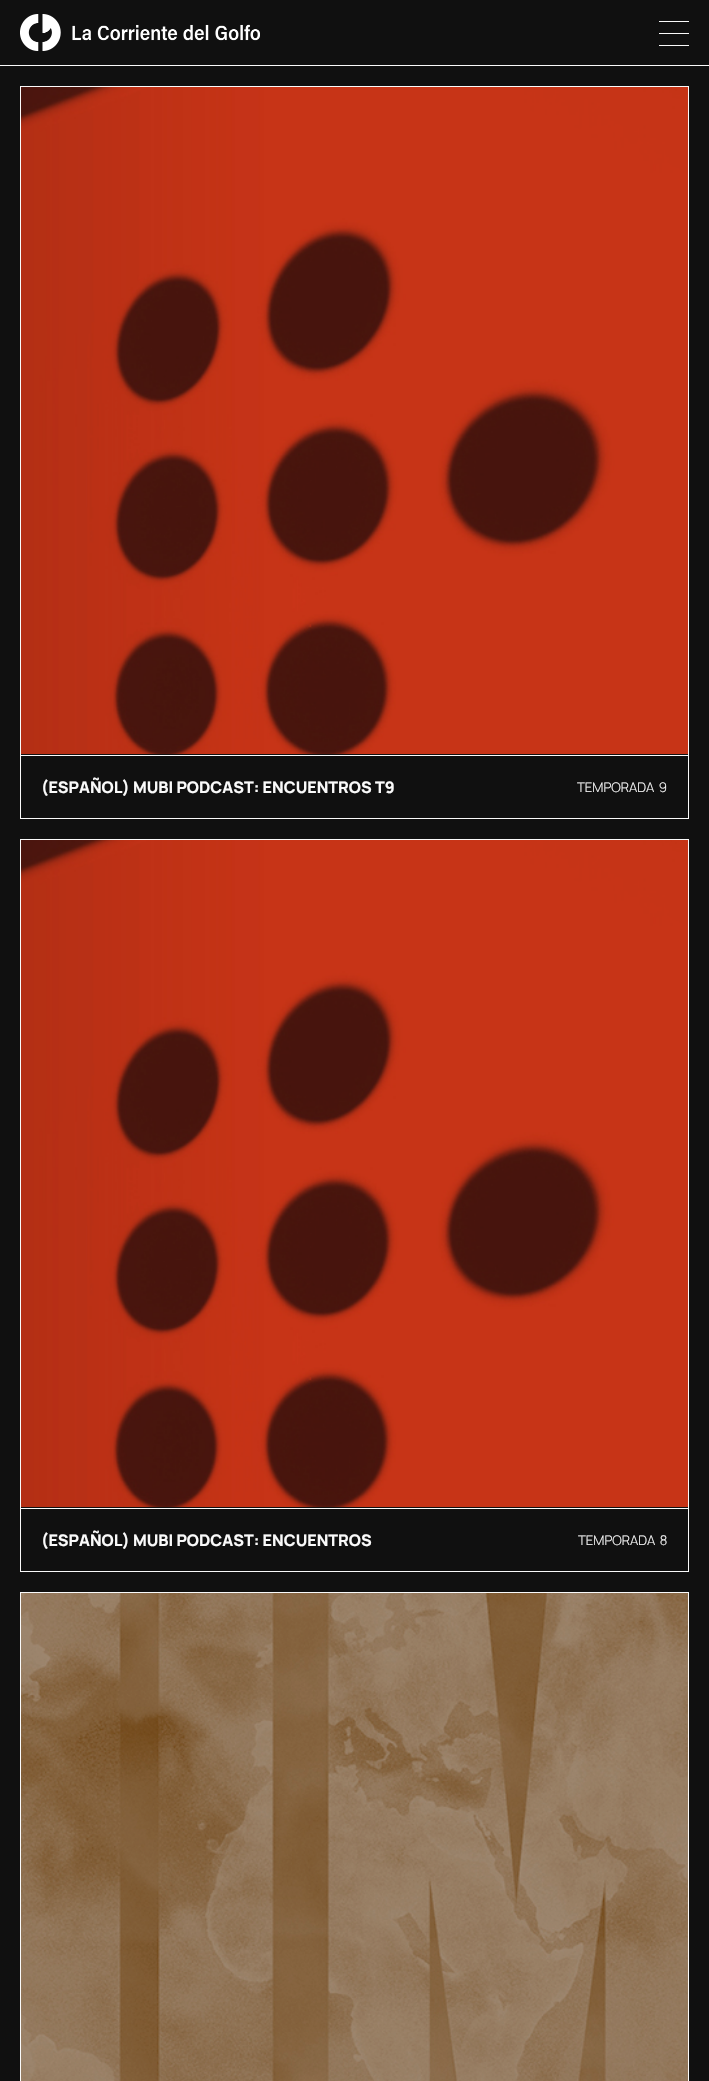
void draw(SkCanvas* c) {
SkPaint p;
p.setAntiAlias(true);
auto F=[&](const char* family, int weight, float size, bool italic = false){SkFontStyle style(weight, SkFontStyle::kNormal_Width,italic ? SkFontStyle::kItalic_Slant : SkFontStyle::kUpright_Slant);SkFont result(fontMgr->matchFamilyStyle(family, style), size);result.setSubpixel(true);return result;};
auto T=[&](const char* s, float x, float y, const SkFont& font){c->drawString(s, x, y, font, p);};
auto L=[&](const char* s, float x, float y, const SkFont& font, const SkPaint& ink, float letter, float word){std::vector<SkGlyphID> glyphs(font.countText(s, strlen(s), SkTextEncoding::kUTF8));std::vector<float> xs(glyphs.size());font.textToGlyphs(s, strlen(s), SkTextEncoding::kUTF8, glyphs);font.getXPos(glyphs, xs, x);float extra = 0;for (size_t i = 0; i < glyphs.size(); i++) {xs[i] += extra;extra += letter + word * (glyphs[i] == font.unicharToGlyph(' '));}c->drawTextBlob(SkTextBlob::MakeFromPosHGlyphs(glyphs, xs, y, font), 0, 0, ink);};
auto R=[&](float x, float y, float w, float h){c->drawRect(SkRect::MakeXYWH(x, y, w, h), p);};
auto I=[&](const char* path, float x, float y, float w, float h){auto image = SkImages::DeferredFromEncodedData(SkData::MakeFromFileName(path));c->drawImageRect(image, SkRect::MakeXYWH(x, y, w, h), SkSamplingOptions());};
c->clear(0xff101010);
p.setColor(0xfffafafa);
R(0,65,709,1);
I("1.png",20,14,240,37);
R(659,21,30,1);
R(659,33,30,1);
R(659,45,30,1);
p.setStroke(true);
p.setStrokeWidth(1);
c->drawRect(SkRect::MakeXYWH(20.5,86.5,668,732),p);
I("2.png",21,87,667,667);
c->save();
c->clipRect(SkRect::MakeXYWH(21,87,667,731));
c->drawRect(SkRect::MakeXYWH(20.5,755.5,668,63),p);
c->restore();
auto f1 = F("Manrope",800,16);
p.setStroke(false);
T("(ESPAÑOL) MUBI PODCAST: ENCUENTROS T9",41,793,f1);
auto f2 = F("Manrope",300,13.25);
L("TEMPORADA 9",577,792,f2,p,0,2);
p.setStroke(true);
c->drawRect(SkRect::MakeXYWH(20.5,839.5,668,732),p);
I("2.png",21,840,667,667);
c->save();
c->clipRect(SkRect::MakeXYWH(21,840,667,731));
c->drawRect(SkRect::MakeXYWH(20.5,1508.5,668,63),p);
c->restore();
p.setStroke(false);
T("(ESPAÑOL) MUBI PODCAST: ENCUENTROS",41,1546,f1);
L("TEMPORADA 8",578,1545,f2,p,0,2);
p.setStroke(true);
c->drawRect(SkRect::MakeXYWH(20.5,1592.5,668,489),p);
I("3.png",21,1593,667,488);
}
